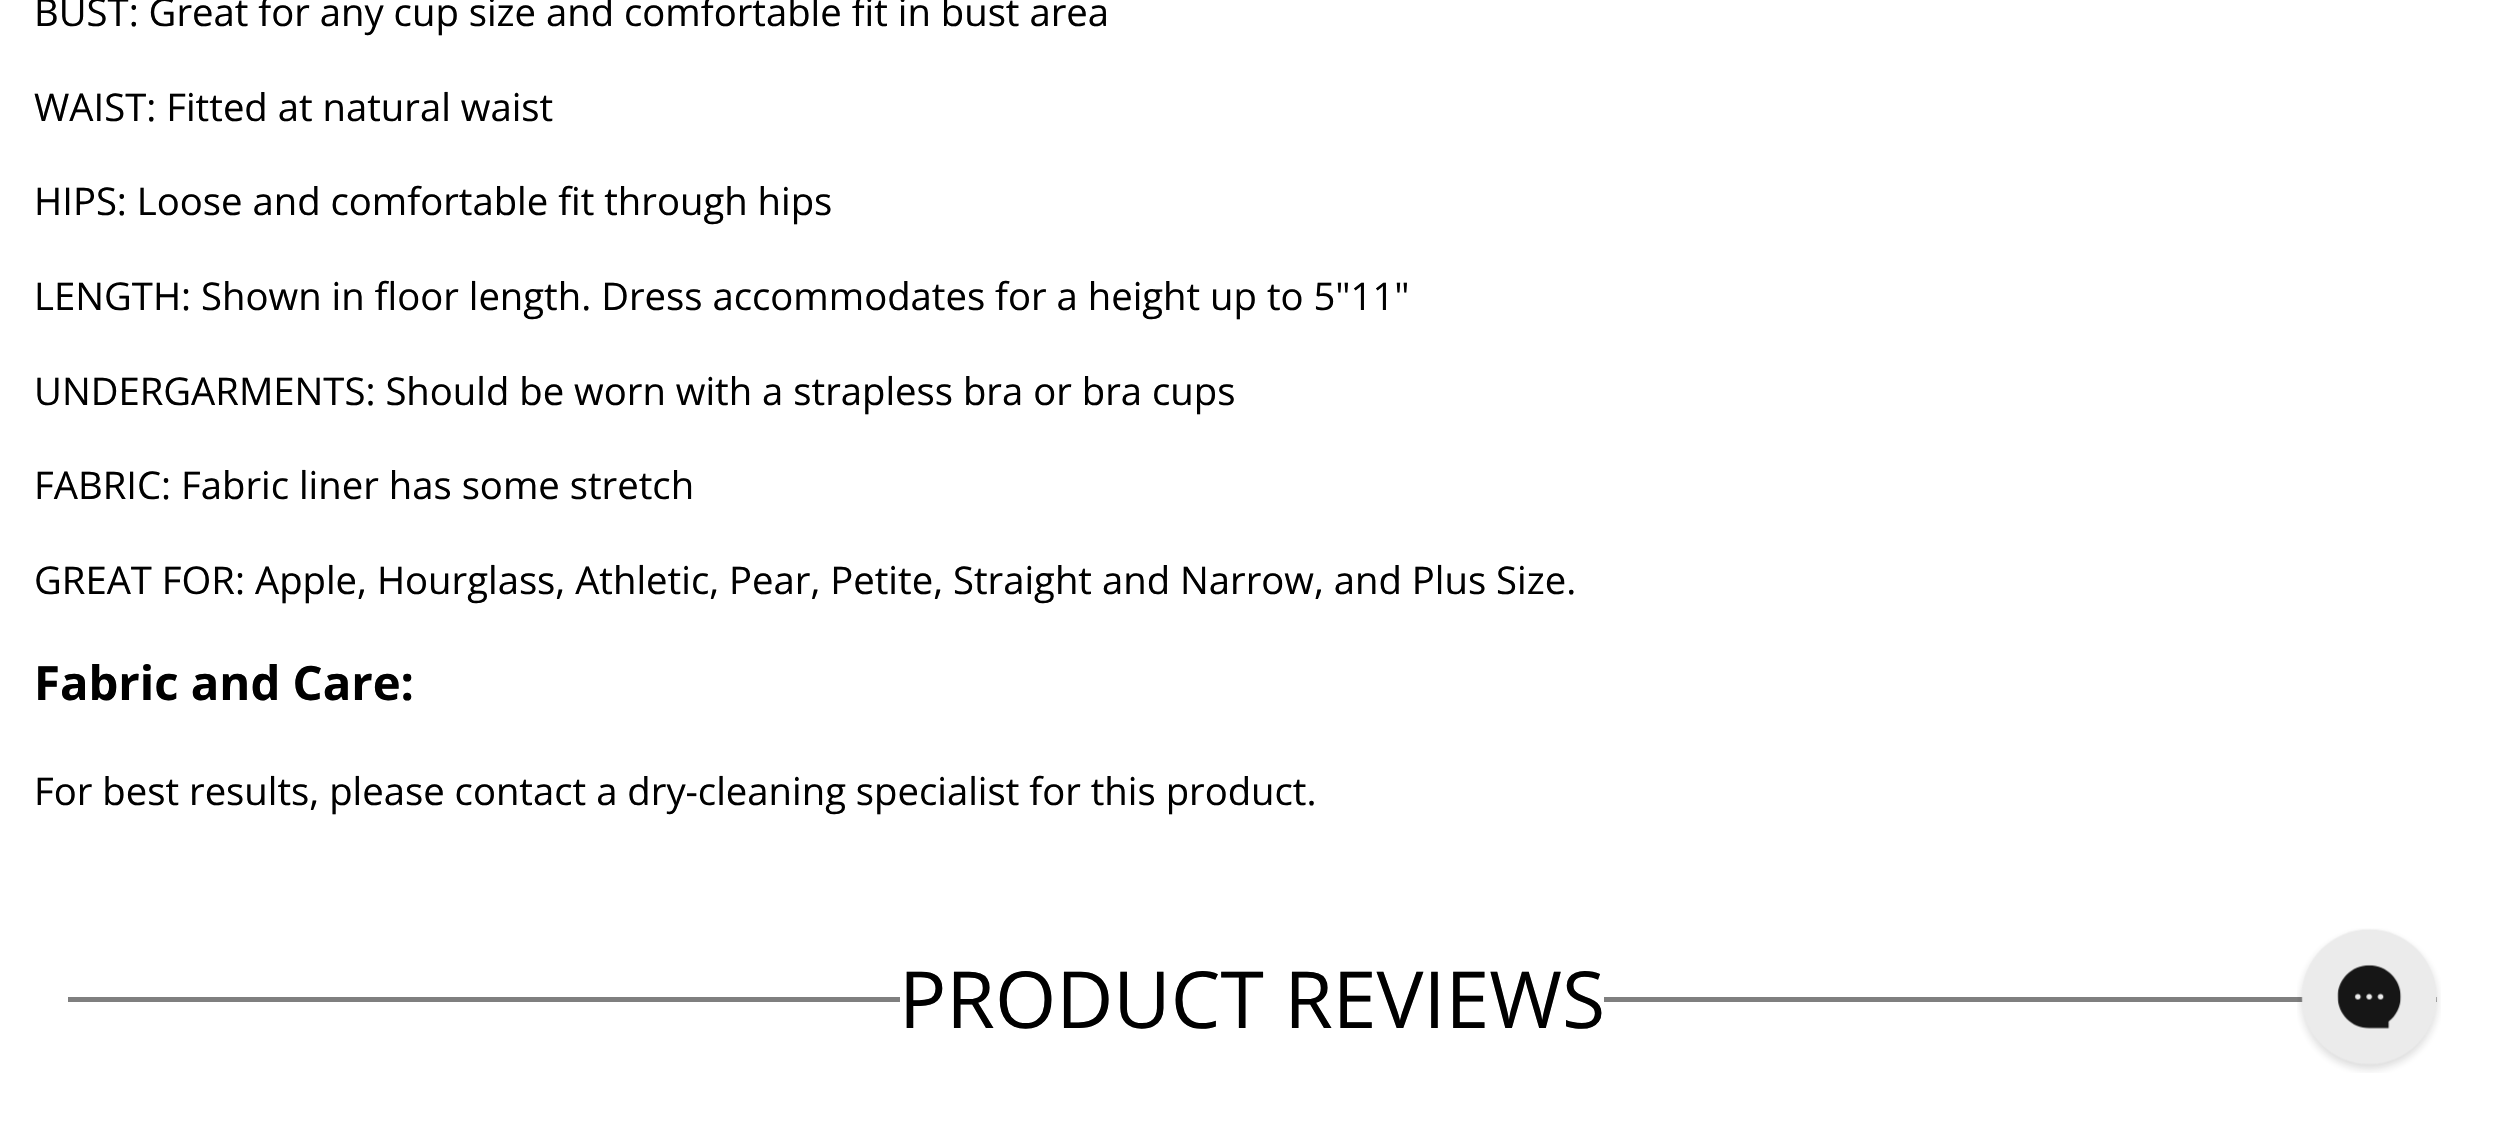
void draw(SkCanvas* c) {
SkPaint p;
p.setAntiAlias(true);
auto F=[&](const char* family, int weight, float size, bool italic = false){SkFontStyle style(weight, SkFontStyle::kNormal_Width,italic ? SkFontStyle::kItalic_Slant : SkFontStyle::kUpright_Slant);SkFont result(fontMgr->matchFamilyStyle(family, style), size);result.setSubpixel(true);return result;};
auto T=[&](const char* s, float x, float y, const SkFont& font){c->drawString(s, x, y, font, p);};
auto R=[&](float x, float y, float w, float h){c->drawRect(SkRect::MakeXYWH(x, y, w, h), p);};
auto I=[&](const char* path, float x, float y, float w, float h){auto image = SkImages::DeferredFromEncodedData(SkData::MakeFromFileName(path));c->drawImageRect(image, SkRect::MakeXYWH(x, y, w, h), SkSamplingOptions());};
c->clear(0xffffffff);
auto f1 = F("Open Sans",400,38.25);
p.setColor(0xff000000);
T("BUST: Great for any cup size and comfortable fit in bust area",34,26,f1);
T("WAIST: Fitted at natural waist",34,121,f1);
T("HIPS: Loose and comfortable fit through hips",34,215,f1);
T("LENGTH: Shown in floor length. Dress accommodates for a height up to 5\"11\"",34,310,f1);
T("UNDERGARMENTS: Should be worn with a strapless bra or bra cups",34,405,f1);
T("FABRIC: Fabric liner has some stretch",34,499,f1);
T("GREAT FOR: Apple, Hourglass, Athletic, Pear, Petite, Straight and Narrow, and Plus Size.",34,594,f1);
auto f2 = F("Open Sans",700,47.25);
T("Fabric and Care:",34,700,f2);
T("For best results, please contact a dry-cleaning specialist for this product.",34,805,f1);
p.setColor(0xff7f7f7f);
R(68,997,2369,5);
p.setColor(0xffffffff);
R(900,997,704,5);
auto f3 = F("Open Sans",400,78.75);
p.setColor(0xff000000);
T("PRODUCT REVIEWS",899,1028,f3);
I("1.png",2297,928,144,145);
}
